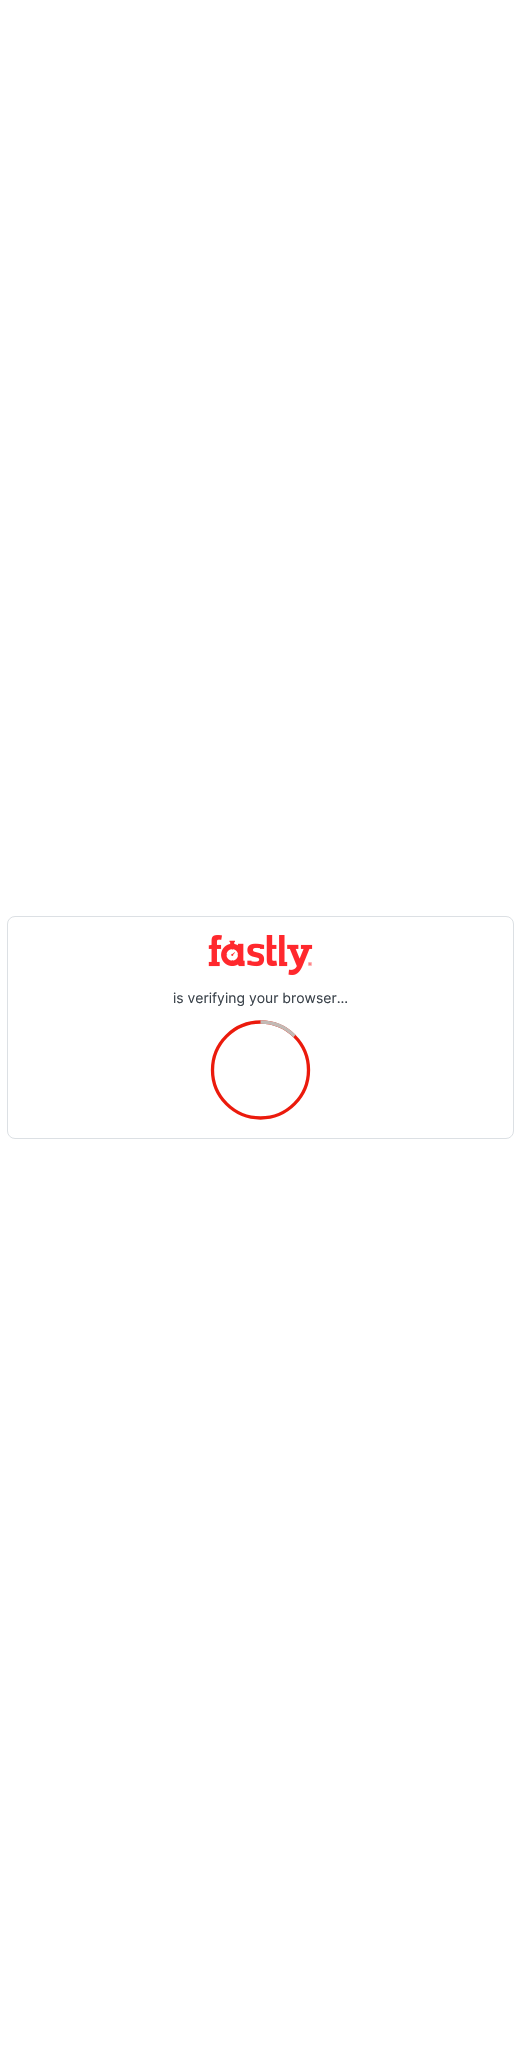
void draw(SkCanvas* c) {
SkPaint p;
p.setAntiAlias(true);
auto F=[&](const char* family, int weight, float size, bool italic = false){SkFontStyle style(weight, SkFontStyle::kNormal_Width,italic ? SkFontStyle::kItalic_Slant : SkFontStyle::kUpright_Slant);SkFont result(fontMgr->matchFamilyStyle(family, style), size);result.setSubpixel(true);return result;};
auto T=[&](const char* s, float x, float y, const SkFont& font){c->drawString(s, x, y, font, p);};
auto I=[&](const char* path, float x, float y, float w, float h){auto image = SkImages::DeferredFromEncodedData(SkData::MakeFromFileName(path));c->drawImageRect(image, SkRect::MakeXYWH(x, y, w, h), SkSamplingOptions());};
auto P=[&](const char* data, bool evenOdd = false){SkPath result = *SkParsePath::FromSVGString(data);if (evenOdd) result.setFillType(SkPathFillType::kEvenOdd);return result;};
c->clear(0xffffffff);
p.setStroke(true);
p.setStrokeWidth(1);
p.setColor(0xffdce0e4);
c->drawRoundRect(SkRect::MakeXYWH(7.5,916.5,506,222),7.5,7.5,p);
I("1.png",208,935,105,40);
auto f1 = F("Inter",400,14);
p.setStroke(false);
p.setColor(0xff3a424a);
T("is verifying your browser...",173,1003,f1);
p.setStroke(true);
p.setStrokeWidth(3.3);
p.setColor(0xffeb1a0c);
c->drawPath(P("M212.5 1070c0-26.5 21.5-48 48-48c26.5 0 48 21.5 48 48c0 26.5-21.5 48-48 48c-26.5 0-48-21.5-48-48z"),p);
p.setColor(0xffc2bab5);
c->drawPath(P("M294.5 1036c-9-9-21.5-14-34-14"),p);
}
